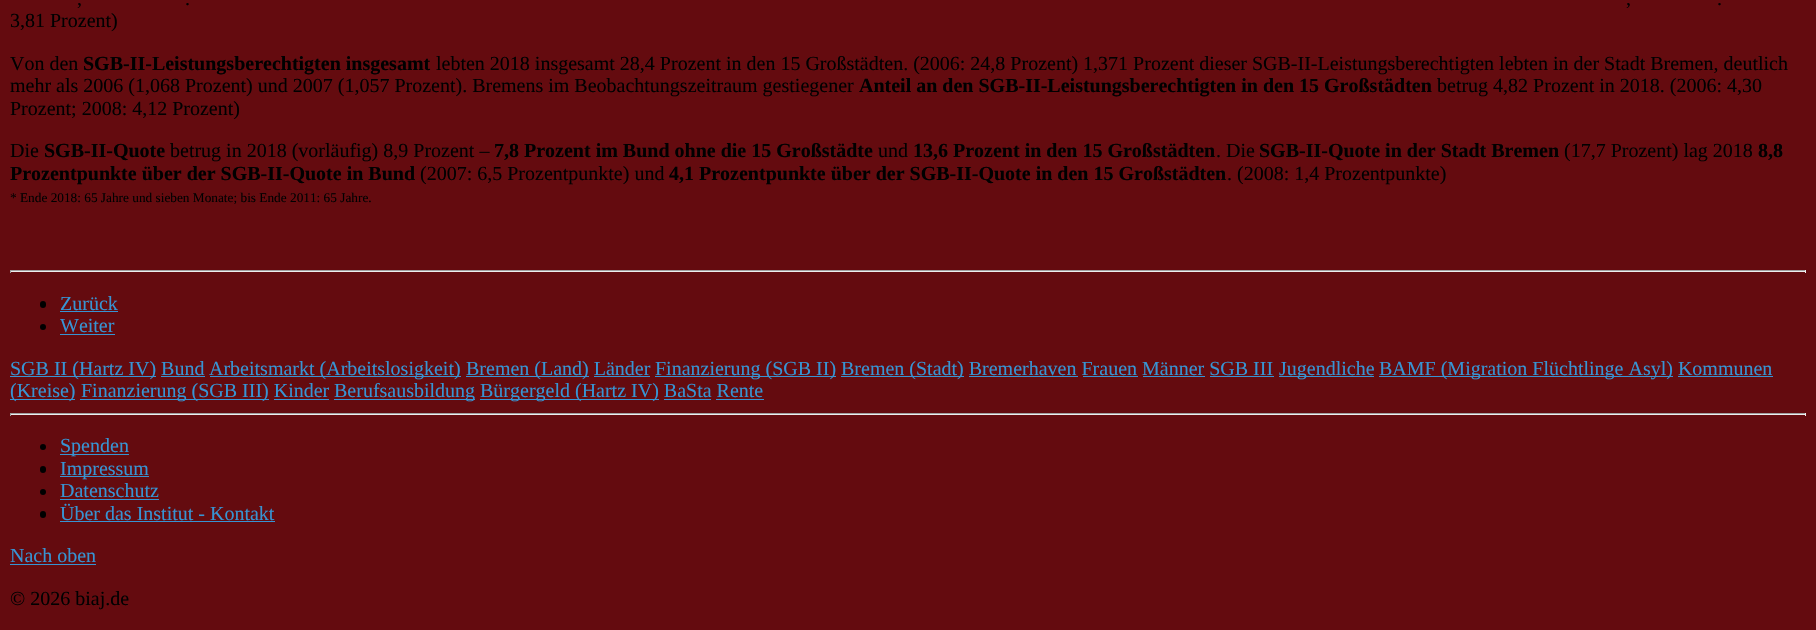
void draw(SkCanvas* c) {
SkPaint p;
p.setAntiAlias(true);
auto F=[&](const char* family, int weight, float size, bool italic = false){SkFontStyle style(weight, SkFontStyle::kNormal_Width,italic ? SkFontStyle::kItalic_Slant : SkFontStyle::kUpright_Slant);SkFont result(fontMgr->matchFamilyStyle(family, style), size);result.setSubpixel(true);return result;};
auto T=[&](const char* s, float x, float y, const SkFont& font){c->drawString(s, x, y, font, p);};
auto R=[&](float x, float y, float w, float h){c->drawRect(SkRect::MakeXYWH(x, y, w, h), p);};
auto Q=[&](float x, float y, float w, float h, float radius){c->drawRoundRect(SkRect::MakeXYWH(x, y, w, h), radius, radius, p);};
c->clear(0xff640b0f);
auto f1 = F("Liberation Serif",400,20);
p.setColor(0xff000000);
T(",",77,5,f1);
T(".",185,5,f1);
T(",",1626,5,f1);
T(".",1717,5,f1);
T("3,81 Prozent)",10,27,f1);
T("Von den",10,70,f1);
auto f2 = F("Liberation Serif",700,20);
T("SGB-II-Leistungsberechtigten insgesamt",83,70,f2);
T("lebten 2018 insgesamt 28,4 Prozent in den 15 Großstädten. (2006: 24,8 Prozent) 1,371 Prozent dieser SGB-II-Leistungsberechtigten lebten in der Stadt Bremen, deutlich",436,70,f1);
T("mehr als 2006 (1,068 Prozent) und 2007 (1,057 Prozent). Bremens im Beobachtungszeitraum gestiegener",10,92,f1);
T("Anteil an den SGB-II-Leistungsberechtigten in den 15 Großstädten",859,92,f2);
T("betrug 4,82 Prozent in 2018. (2006: 4,30",1437,92,f1);
T("Prozent; 2008: 4,12 Prozent)",10,115,f1);
T("Die",10,157,f1);
T("SGB-II-Quote",44,157,f2);
T("betrug in 2018 (vorläufig) 8,9 Prozent –",170,157,f1);
T("7,8 Prozent im Bund ohne die 15 Großstädte",494,157,f2);
T("und",878,157,f1);
T("13,6 Prozent in den 15 Großstädten",913,157,f2);
T(". Die",1216,157,f1);
T("SGB-II-Quote in der Stadt Bremen",1259,157,f2);
T("(17,7 Prozent) lag 2018",1564,157,f1);
T("8,8",1758,157,f2);
T("Prozentpunkte über der SGB-II-Quote in Bund",10,180,f2);
T("(2007: 6,5 Prozentpunkte) und",420,180,f1);
T("4,1 Prozentpunkte über der SGB-II-Quote in den 15 Großstädten",669,180,f2);
T(". (2008: 1,4 Prozentpunkte)",1227,180,f1);
auto f3 = F("Liberation Serif",400,13.3);
T("* Ende 2018: 65 Jahre und sieben Monate; bis Ende 2011: 65 Jahre.",10,202,f3);
p.setColor(0xff9f9f9f);
R(10,270,1796,1);
p.setColor(0xffeeeeee);
R(1805,270,1,3);
R(10,271,1796,1);
p.setColor(0xff9f9f9f);
R(10,270,1,3);
p.setColor(0xff000000);
Q(40,301,6,7,3);
p.setColor(0xff3794d3);
T("Zurück",60,310,f1);
R(60,311,58,1);
p.setColor(0xff000000);
c->drawCircle(43,327,3,p);
p.setColor(0xff3794d3);
T("Weiter",60,332,f1);
R(60,334,55,1);
R(10,376,146,1);
T("SGB II (Hartz IV) Bund",10,375,f1);
R(210,376,251,1);
T("Arbeitsmarkt (Arbeitslosigkeit)",209,375,f1);
R(466,376,123,1);
T("Bremen (Land) Länder",466,375,f1);
R(655,376,181,1);
T("Finanzierung (SGB II)",655,375,f1);
R(841,376,123,1);
T("Bremen (Stadt) Bremerhaven Frauen Männer SGB III",841,375,f1);
R(1279,376,95,1);
T("Jugendliche",1279,375,f1);
R(1379,376,294,1);
T("BAMF (Migration Flüchtlinge Asyl) Kommunen",1379,375,f1);
R(161,376,44,1);
R(594,376,56,1);
R(969,376,109,1);
R(1083,376,55,1);
R(1143,376,62,1);
R(1210,376,64,1);
R(10,399,65,1);
T("(Kreise)",10,397,f1);
R(1678,376,95,1);
R(80,399,189,1);
T("Finanzierung (SGB III) Kinder",81,397,f1);
R(334,399,141,1);
T("Berufsausbildung",334,397,f1);
R(480,399,179,1);
T("Bürgergeld (Hartz IV) BaSta Rente",480,397,f1);
R(274,399,55,1);
R(664,399,47,1);
R(716,399,48,1);
p.setColor(0xff9f9f9f);
R(10,413,1796,1);
p.setColor(0xffeeeeee);
R(1805,413,1,3);
R(10,414,1796,1);
p.setColor(0xff9f9f9f);
R(10,413,1,3);
p.setColor(0xff000000);
c->drawCircle(43,447,3,p);
p.setColor(0xff3794d3);
R(60,454,69,1);
T("Spenden",60,452,f1);
p.setColor(0xff000000);
Q(40,466,6,7,3);
p.setColor(0xff3794d3);
R(60,476,89,1);
T("Impressum",60,475,f1);
p.setColor(0xff000000);
c->drawCircle(43,492,3,p);
p.setColor(0xff3794d3);
T("Datenschutz",60,497,f1);
R(60,499,99,1);
p.setColor(0xff000000);
Q(40,511,6,7,3);
p.setColor(0xff3794d3);
T("Über das Institut - Kontakt",60,520,f1);
R(60,521,215,1);
T("Nach oben",10,562,f1);
R(10,564,86,1);
p.setColor(0xff000000);
T("© 2026 biaj.de",10,605,f1);
}
